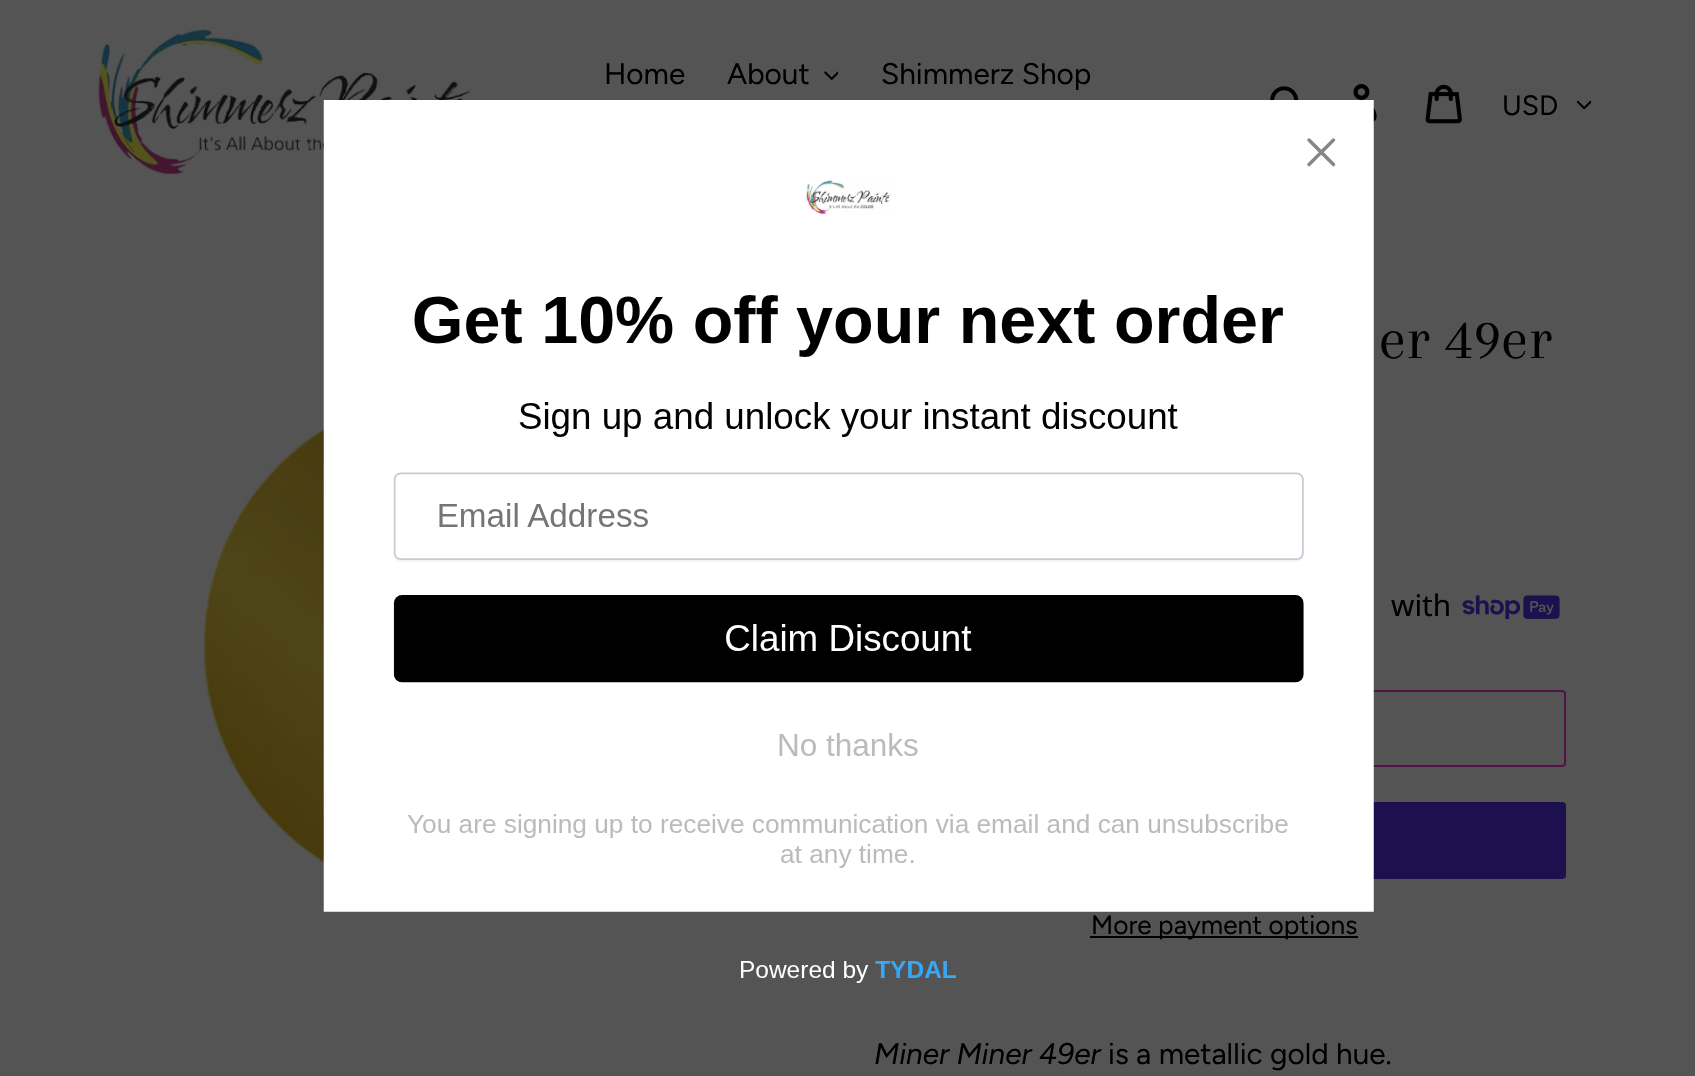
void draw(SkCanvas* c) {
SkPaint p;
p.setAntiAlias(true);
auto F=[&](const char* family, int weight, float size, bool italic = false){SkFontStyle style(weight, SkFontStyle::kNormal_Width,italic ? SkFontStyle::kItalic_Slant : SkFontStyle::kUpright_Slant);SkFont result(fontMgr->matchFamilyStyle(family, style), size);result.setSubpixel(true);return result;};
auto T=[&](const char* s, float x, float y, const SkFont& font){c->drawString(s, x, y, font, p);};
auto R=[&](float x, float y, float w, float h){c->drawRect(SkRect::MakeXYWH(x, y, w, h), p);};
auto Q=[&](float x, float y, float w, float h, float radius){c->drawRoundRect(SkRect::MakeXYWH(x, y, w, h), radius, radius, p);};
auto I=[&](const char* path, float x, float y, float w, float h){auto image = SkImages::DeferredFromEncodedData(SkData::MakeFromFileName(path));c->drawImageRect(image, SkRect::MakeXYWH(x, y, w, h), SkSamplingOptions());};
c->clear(0xffffffff);
I("2.png",96,27,374,149);
auto f1 = F("Figtree",400,29.75);
p.setColor(0xff000000);
T("Home",604,84,f1);
T("About",727,84,f1);
I("3.png",824,71,14,9);
T("Shimmerz Shop",881,84,f1);
I("4.png",1270,86,29,14);
I("5.png",1353,84,24,38);
I("6.png",1425,84,37,40);
auto f2 = F("Figtree",400,28);
T("USD",1502,115,f2);
I("7.png",1577,100,14,10);
I("8.png",195,388,129,515);
auto f3 = F("Arapey",400,61);
T("er 49er",1379,358,f3);
auto f4 = F("Noto Sans",400,29.75);
T("with",1391,616,f4);
I("9.png",1462,595,98,24);
p.setStroke(true);
p.setStrokeWidth(2);
p.setColor(0xffff36da);
c->drawRoundRect(SkRect::MakeXYWH(885,691,680,75),3,3,p);
p.setStroke(false);
p.setColor(0xff5433eb);
Q(884,802,682,77,4);
p.setColor(0xff000000);
R(1090,936,268,2);
auto f5 = F("Figtree",400,26.25);
T("More payment options",1091,934,f5);
auto f6 = F("Figtree",400,29.75,true);
T("Miner Miner 49er",874,1064,f6);
T("is a metallic gold hue.",1108,1064,f1);
I("1.png",0,0,1695,1076);
}
